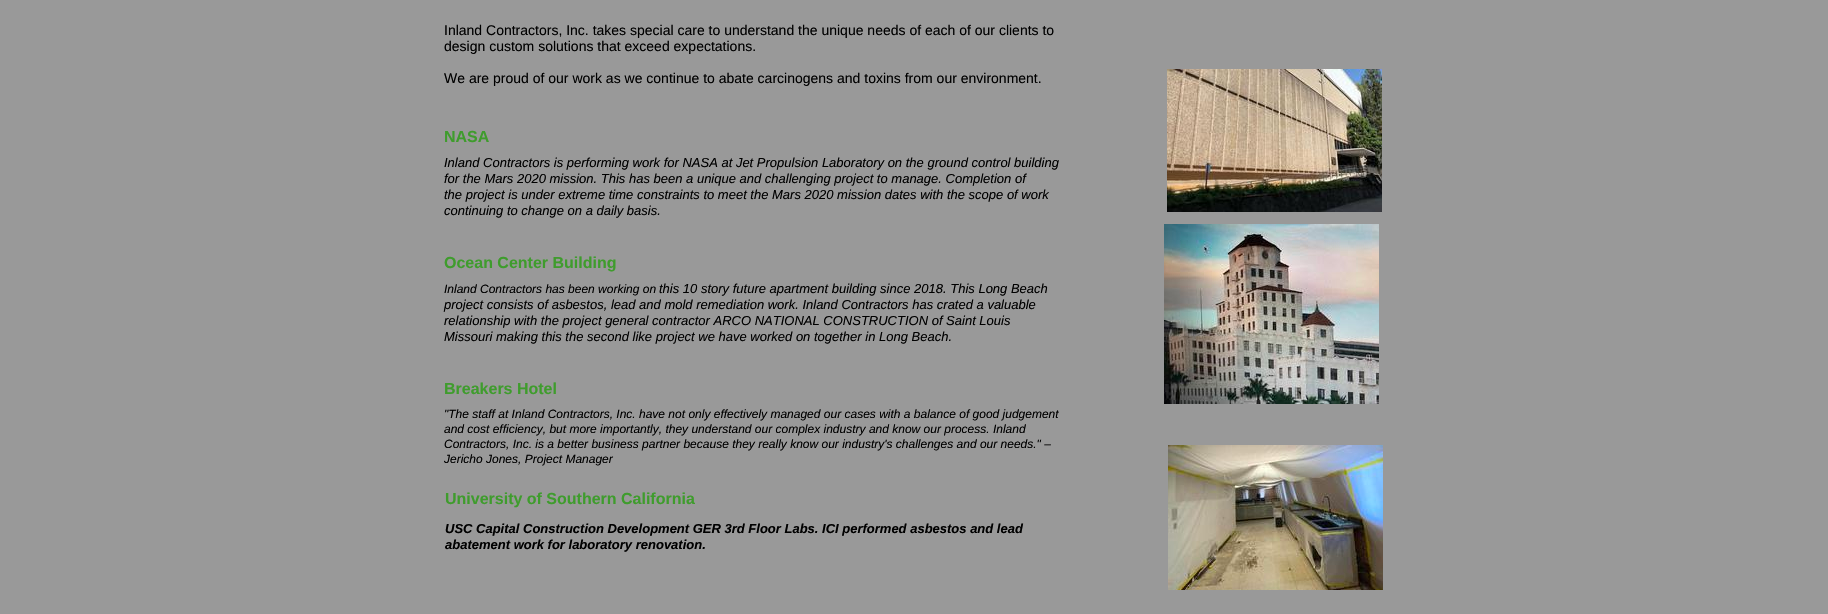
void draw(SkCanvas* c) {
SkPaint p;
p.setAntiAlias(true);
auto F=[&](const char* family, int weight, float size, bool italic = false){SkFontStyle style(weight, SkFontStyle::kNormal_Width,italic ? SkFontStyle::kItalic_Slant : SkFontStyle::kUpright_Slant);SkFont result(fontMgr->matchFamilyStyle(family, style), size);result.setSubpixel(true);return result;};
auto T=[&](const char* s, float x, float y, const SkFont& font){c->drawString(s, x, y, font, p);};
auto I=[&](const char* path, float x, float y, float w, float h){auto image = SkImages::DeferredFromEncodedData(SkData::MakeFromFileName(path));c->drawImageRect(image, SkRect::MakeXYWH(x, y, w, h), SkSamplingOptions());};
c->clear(0xff999999);
auto f1 = F("Liberation Sans",400,14);
p.setColor(0xff000000);
T("Inland Contractors, Inc. takes special care to understand the unique needs of each of our clients to",444,35,f1);
T("design custom solutions that exceed expectations.",444,51,f1);
T("We are proud of our work as we continue to abate carcinogens and toxins from our environment.",444,83,f1);
auto f2 = F("Liberation Sans",700,16);
p.setColor(0xff3f9c2d);
T("NASA",444,142,f2);
I("1.png",1167,69,215,143);
auto f3 = F("Liberation Sans",400,13,true);
p.setColor(0xff000000);
T("Inland Contractors is performing work for NASA at Jet Propulsion Laboratory on the ground control building",444,167,f3);
T("for the Mars 2020 mission. This has been a unique and challenging project to manage. Completion of",444,183,f3);
T("the project is under extreme time constraints to meet the Mars 2020 mission dates with the scope of work",444,199,f3);
T("continuing to change on a daily basis.",444,215,f3);
p.setColor(0xff3f9c2d);
T("Ocean Center Building",444,268,f2);
I("2.png",1164,224,215,180);
auto f4 = F("Liberation Sans",400,12,true);
p.setColor(0xff000000);
T("Inland Contractors has been working on",444,293,f4);
T("this 10 story future apartment building since 2018. This Long Beach",659,293,f3);
T("project consists of asbestos, lead and mold remediation work. Inland Contractors has crated a valuable",444,309,f3);
T("relationship with the project general contractor ARCO NATIONAL CONSTRUCTION of Saint Louis",444,325,f3);
T("Missouri making this the second like project we have worked on together in Long Beach.",444,341,f3);
p.setColor(0xff3f9c2d);
T("Breakers Hotel",444,394,f2);
p.setColor(0xff000000);
T("\"The staff at Inland Contractors, Inc. have not only effectively managed our cases with a balance of good judgement",444,418,f4);
T("and cost efficiency, but more importantly, they understand our complex industry and know our process. Inland",444,433,f4);
T("Contractors, Inc. is a better business partner because they really know our industry's challenges and our needs.\" –",444,448,f4);
T("Jericho Jones, Project Manager",444,463,f4);
p.setColor(0xff3f9c2d);
T("University of Southern California",445,504,f2);
I("3.png",1168,445,215,145);
auto f5 = F("Liberation Sans",700,13,true);
p.setColor(0xff000000);
T("USC Capital Construction Development GER 3rd Floor Labs. ICI performed asbestos and lead",445,533,f5);
T("abatement work for laboratory renovation.",445,549,f5);
}
